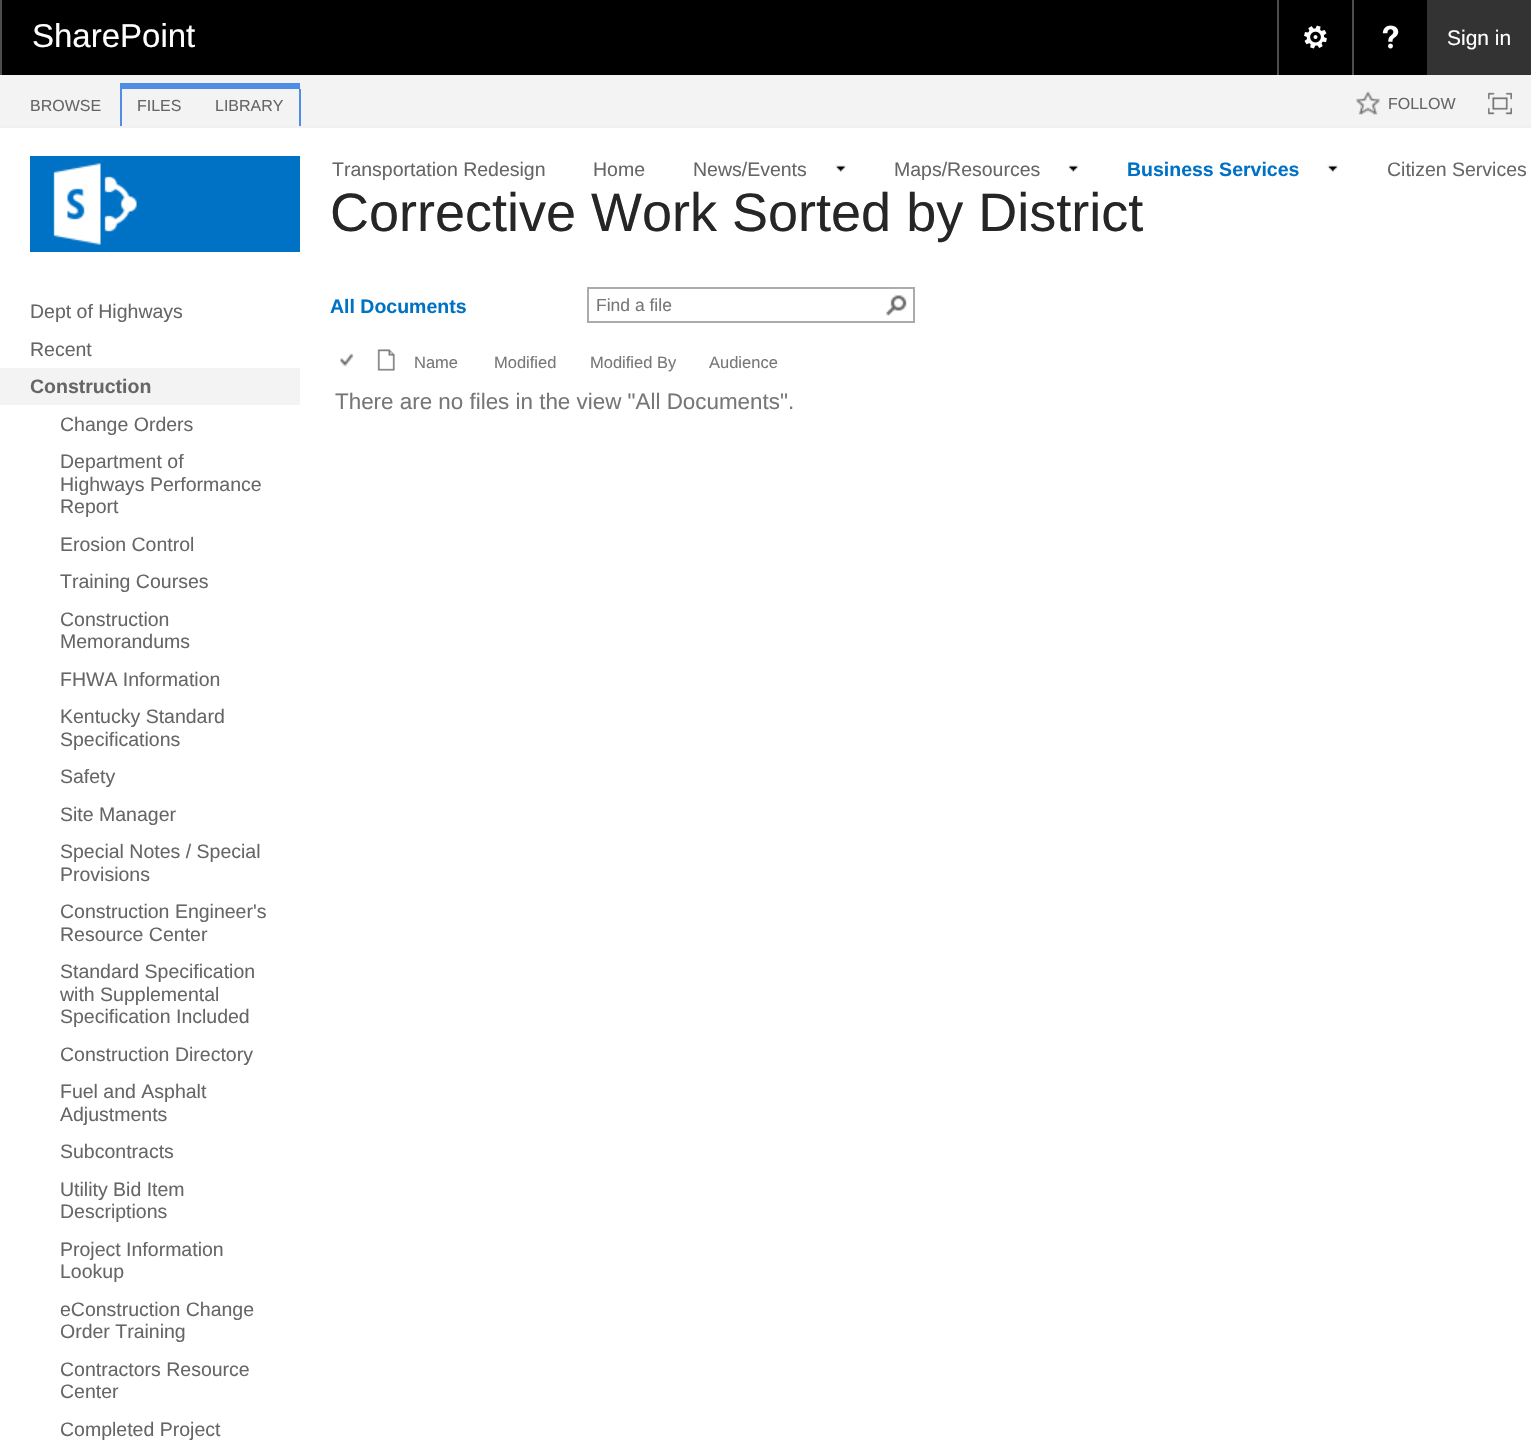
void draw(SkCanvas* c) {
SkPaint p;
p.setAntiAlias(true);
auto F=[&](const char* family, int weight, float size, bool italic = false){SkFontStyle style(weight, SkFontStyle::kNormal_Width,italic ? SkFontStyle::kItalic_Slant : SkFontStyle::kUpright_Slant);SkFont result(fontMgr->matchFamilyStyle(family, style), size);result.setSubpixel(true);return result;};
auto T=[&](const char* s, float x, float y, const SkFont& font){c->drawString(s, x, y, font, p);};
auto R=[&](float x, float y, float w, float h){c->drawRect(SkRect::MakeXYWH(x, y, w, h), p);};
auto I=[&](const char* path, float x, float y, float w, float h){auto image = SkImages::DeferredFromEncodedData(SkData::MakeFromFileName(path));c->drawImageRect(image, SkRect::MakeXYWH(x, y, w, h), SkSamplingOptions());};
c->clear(0xffffffff);
p.setColor(0xff000000);
R(2,0,1425,75);
p.setColor(0xff4d4d4d);
R(0,0,2,75);
auto f1 = F("Liberation Sans",400,33);
p.setColor(0xffffffff);
T("SharePoint",32,47,f1);
p.setColor(0xff4d4d4d);
R(1277,0,2,75);
I("1.png",1304,25,23,24);
R(1352,0,2,75);
I("2.png",1382,25,17,24);
p.setColor(0xff333333);
R(1427,0,104,75);
auto f2 = F("Liberation Sans",400,21);
p.setColor(0xffffffff);
T("Sign in",1447,45,f2);
p.setColor(0xfff3f3f3);
R(0,75,1531,51);
p.setColor(0xfff0f0f0);
R(0,126,1531,2);
auto f3 = F("Liberation Sans",400,16);
p.setColor(0xff666666);
T("BROWSE",30,111,f3);
p.setColor(0xff508ee6);
R(120,83,180,6);
R(120,89,2,37);
p.setColor(0xff666666);
T("FILES",137,111,f3);
p.setColor(0xff508ee6);
R(299,89,2,37);
p.setColor(0xff666666);
T("LIBRARY",215,111,f3);
I("3.png",1356,91,24,24);
T("FOLLOW",1388,109,f3);
I("4.png",1488,92,24,23);
I("5.png",30,156,270,96);
auto f4 = F("Liberation Sans",400,19.5);
T("Transportation Redesign",332,176,f4);
T("Home",593,176,f4);
T("News/Events",693,176,f4);
I("6.png",835,165,11,8);
T("Maps/Resources",894,176,f4);
I("7.png",1068,165,11,8);
auto f5 = F("Liberation Sans",700,19.5);
p.setColor(0xff0072c6);
T("Business Services",1127,176,f5);
I("8.png",1327,165,11,8);
p.setColor(0xff666666);
T("Citizen Services",1387,176,f4);
auto f6 = F("Liberation Sans",400,54);
p.setColor(0xff262626);
T("Corrective Work Sorted by District",330,231,f6);
p.setColor(0xff666666);
T("Dept of Highways",30,318,f4);
T("Recent",30,356,f4);
p.setColor(0xfff3f3f3);
R(0,368,300,37);
p.setColor(0xff666666);
T("Construction",30,393,f5);
T("Change Orders",60,431,f4);
T("Department of",60,468,f4);
T("Highways Performance",60,491,f4);
T("Report",60,513,f4);
T("Erosion Control",60,551,f4);
T("Training Courses",60,588,f4);
T("Construction",60,626,f4);
T("Memorandums",60,648,f4);
T("FHWA Information",60,686,f4);
T("Kentucky Standard",60,723,f4);
T("Specifications",60,746,f4);
T("Safety",60,783,f4);
T("Site Manager",60,821,f4);
T("Special Notes / Special",60,858,f4);
T("Provisions",60,881,f4);
T("Construction Engineer's",60,918,f4);
T("Resource Center",60,941,f4);
T("Standard Specification",60,978,f4);
T("with Supplemental",60,1001,f4);
T("Specification Included",60,1023,f4);
T("Construction Directory",60,1061,f4);
T("Fuel and Asphalt",60,1098,f4);
T("Adjustments",60,1121,f4);
T("Subcontracts",60,1158,f4);
T("Utility Bid Item",60,1196,f4);
T("Descriptions",60,1218,f4);
T("Project Information",60,1256,f4);
T("Lookup",60,1278,f4);
T("eConstruction Change",60,1316,f4);
T("Order Training",60,1338,f4);
T("Contractors Resource",60,1376,f4);
T("Center",60,1398,f4);
T("Completed Project",60,1436,f4);
p.setColor(0xff0072c6);
T("All Documents",330,313,f5);
p.setStroke(true);
p.setStrokeWidth(2);
p.setColor(0xffababab);
c->drawRect(SkRect::MakeXYWH(588,288,326,34),p);
auto f7 = F("Liberation Sans",400,17.5);
p.setStroke(false);
p.setColor(0xff777777);
T("Find a file",596,311,f7);
I("9.png",886,295,21,21);
I("10.png",340,353,14,14);
I("11.png",377,349,18,22);
auto f8 = F("Liberation Sans",400,16.5);
T("Name",414,368,f8);
T("Modified",494,368,f8);
T("Modified By",590,368,f8);
T("Audience",709,368,f8);
auto f9 = F("Liberation Sans",400,22.4);
T("There are no files in the view \"All Documents\".",335,409,f9);
}
